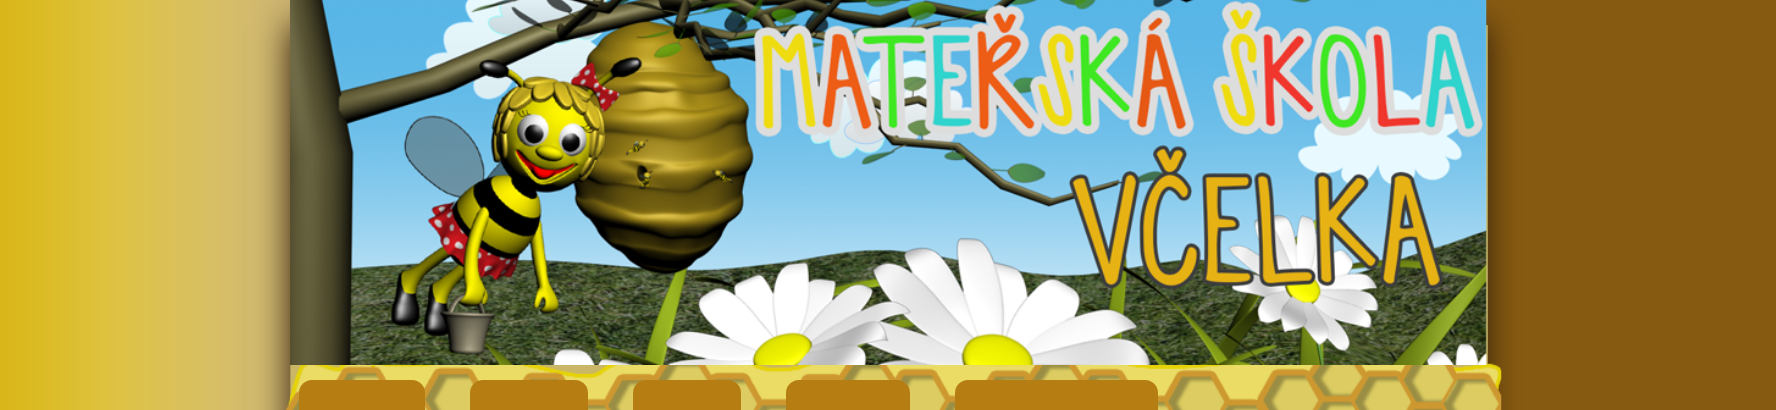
void draw(SkCanvas* c) {
SkPaint p;
p.setAntiAlias(true);
auto R=[&](float x, float y, float w, float h){c->drawRect(SkRect::MakeXYWH(x, y, w, h), p);};
auto Q=[&](float x, float y, float w, float h, float radius){c->drawRoundRect(SkRect::MakeXYWH(x, y, w, h), radius, radius, p);};
auto I=[&](const char* path, float x, float y, float w, float h){auto image = SkImages::DeferredFromEncodedData(SkData::MakeFromFileName(path));c->drawImageRect(image, SkRect::MakeXYWH(x, y, w, h), SkSamplingOptions());};
c->clear(0xffffffff);
I("1.png",0,0,1776,410);
p.setColor(0xff321e08);
p.setMaskFilter(SkMaskFilter::MakeBlur(kNormal_SkBlurStyle, 16));
c->drawRect(SkRect::MakeXYWH(290,25,1198,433),p);
p.setMaskFilter(nullptr);
p.setColor(0xffc9b666);
R(291,26,1196,371);
p.setStroke(true);
p.setStrokeWidth(1);
p.setColor(0xffab9b57);
c->drawRect(SkRect::MakeXYWH(290.5,25.5,1197,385),p);
I("3.png",286,363,1216,47);
I("2.png",290,0,1197,365);
p.setStroke(false);
p.setColor(0xffb57d12);
Q(299,380,126,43,13);
Q(470,380,118,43,13);
Q(633,380,108,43,13);
Q(786,380,124,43,13);
Q(955,380,203,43,13);
}
